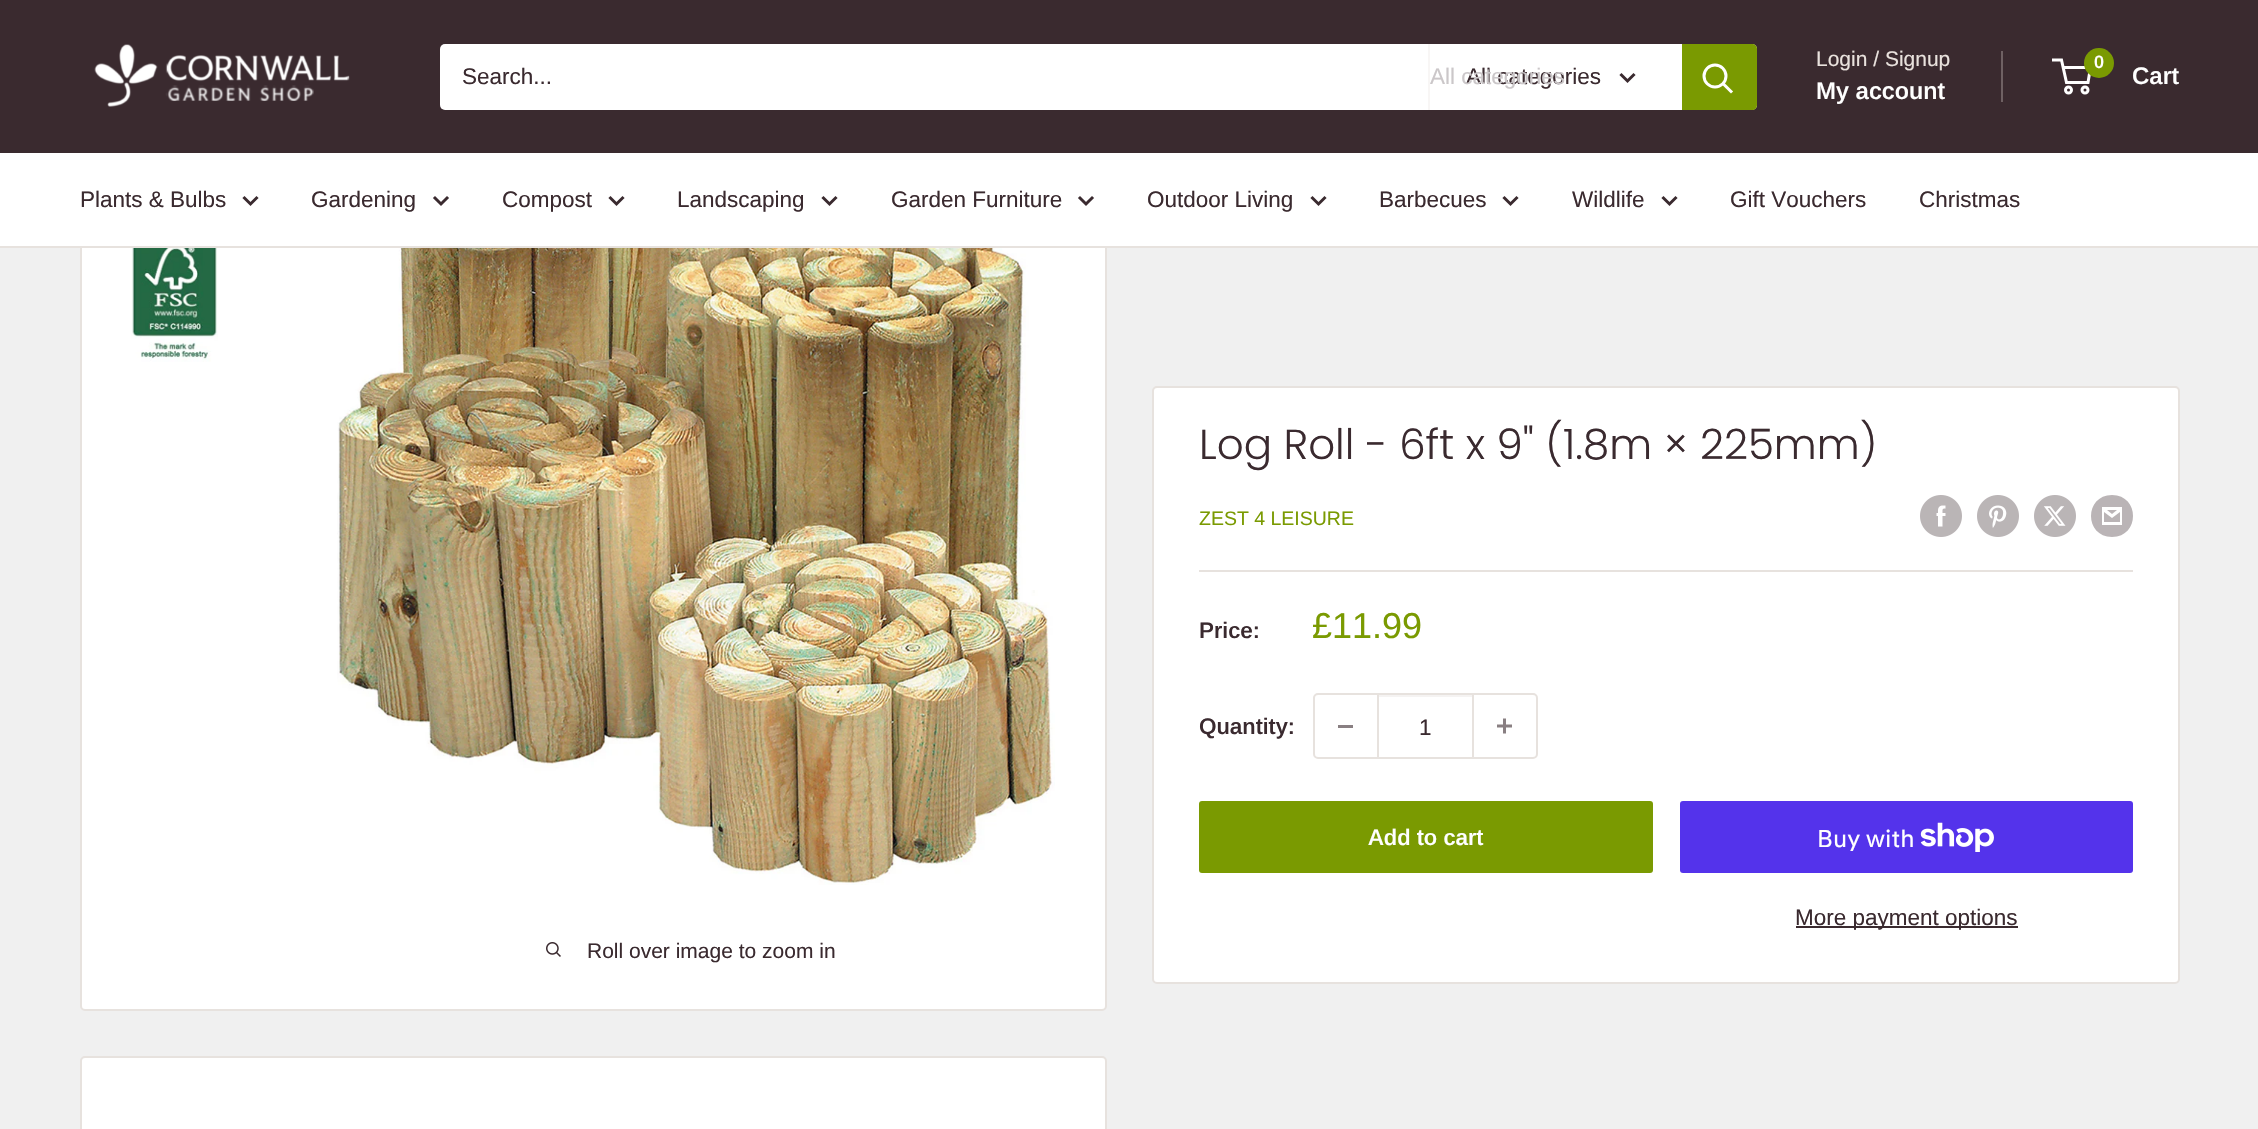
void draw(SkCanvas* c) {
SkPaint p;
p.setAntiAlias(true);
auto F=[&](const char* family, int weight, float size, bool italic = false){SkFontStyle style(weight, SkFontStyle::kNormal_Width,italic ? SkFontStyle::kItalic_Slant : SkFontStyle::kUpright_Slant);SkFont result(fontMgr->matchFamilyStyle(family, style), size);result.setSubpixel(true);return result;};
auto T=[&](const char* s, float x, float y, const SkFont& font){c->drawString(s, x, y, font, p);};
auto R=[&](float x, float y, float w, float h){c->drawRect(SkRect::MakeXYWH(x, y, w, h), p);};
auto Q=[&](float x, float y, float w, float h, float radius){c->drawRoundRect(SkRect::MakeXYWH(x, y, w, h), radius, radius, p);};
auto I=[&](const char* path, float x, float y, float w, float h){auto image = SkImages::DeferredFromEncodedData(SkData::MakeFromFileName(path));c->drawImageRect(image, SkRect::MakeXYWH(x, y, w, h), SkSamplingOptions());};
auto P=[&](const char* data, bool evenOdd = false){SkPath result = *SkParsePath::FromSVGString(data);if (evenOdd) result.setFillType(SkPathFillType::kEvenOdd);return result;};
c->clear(0xfff0f0f0);
p.setColor(0xffffffff);
c->drawRoundRect(SkRect::MakeXYWH(81,61,1025,949),4,4,p);
p.setStroke(true);
p.setStrokeWidth(2);
p.setColor(0xffe7e2de);
c->drawRoundRect(SkRect::MakeXYWH(81,61,1025,949),4,4,p);
p.setStroke(false);
p.setColor(0xff3a2a2f);
R(0,0,2258,153);
I("1.png",94,44,256,63);
p.setColor(0xffffffff);
Q(440,44,1317,66,5);
auto f1 = F("Arimo",400,22.5);
p.setColor(0xff3a2a2f);
T("Search...",462,84,f1);
p.setColor(0xfff8f6f5);
R(1428,44,2,66);
p.setColor(0xff3a2a2f);
T("All categories",1466,84,f1);
p.setColor(0xffcbc7c9);
T("All categories",1430,84,f1);
p.setStroke(true);
p.setStrokeWidth(3);
p.setStrokeCap(SkPaint::kSquare_Cap);
p.setColor(0xff3a2a2f);
c->drawPath(P("M1633.5 75l-6 6l-6-6"),p);
p.setStroke(false);
p.setColor(0xff7a9a01);
c->drawPath(P("M1682 44h70c3 0 5 2 5 5v56c0 3-2 5-5 5h-70z"),p);
p.setStroke(true);
p.setColor(0xffffffff);
c->drawPath(P("M1731 91.5l-7.5-7.5"),p);
p.setStrokeCap(SkPaint::kButt_Cap);
c->drawCircle(1715,76,11,p);
auto f2 = F("Arimo",400,21);
p.setStroke(false);
p.setColor(0xffe9e2dd);
T("Login / Signup",1816,66,f2);
p.setColor(0xff6f6163);
R(2001,51,2,51);
auto f3 = F("Arimo",600,24);
p.setColor(0xffffffff);
T("My account",1816,99,f3);
p.setStroke(true);
c->drawCircle(2068.5,90,3,p);
c->drawCircle(2085,90,3,p);
c->drawPath(P("M2063 67.5h27.5l-2.5 15h-21.5l-5-22.5h-9.5"),p);
p.setStroke(false);
p.setColor(0xff7a9a01);
c->drawCircle(2099,63,15,p);
auto f4 = F("Arimo",600,18);
p.setColor(0xffffffff);
T("0",2094,68,f4);
T("Cart",2132,84,f3);
R(0,153,2258,93);
p.setColor(0xffe7e2de);
R(0,246,2258,2);
p.setColor(0xff3a2a2f);
T("Plants & Bulbs",80,207,f1);
p.setStroke(true);
p.setStrokeCap(SkPaint::kSquare_Cap);
c->drawPath(P("M256.5 198l-6 6l-6-6"),p);
p.setStroke(false);
T("Gardening",311,207,f1);
p.setStroke(true);
c->drawPath(P("M447 198l-6 6l-6-6"),p);
p.setStroke(false);
T("Compost",502,207,f1);
p.setStroke(true);
c->drawPath(P("M622.5 198l-6 6l-6-6"),p);
p.setStroke(false);
T("Landscaping",677,207,f1);
p.setStroke(true);
c->drawPath(P("M835.5 198l-6 6l-6-6"),p);
p.setStroke(false);
T("Garden Furniture",891,207,f1);
p.setStroke(true);
c->drawPath(P("M1092 198l-6 6l-6-6"),p);
p.setStroke(false);
T("Outdoor Living",1147,207,f1);
p.setStroke(true);
c->drawPath(P("M1324.5 198l-6 6l-6-6"),p);
p.setStroke(false);
T("Barbecues",1379,207,f1);
p.setStroke(true);
c->drawPath(P("M1516.5 198l-6 6l-6-6"),p);
p.setStroke(false);
T("Wildlife",1572,207,f1);
p.setStroke(true);
c->drawPath(P("M1675.5 198l-6 6l-6-6"),p);
p.setStroke(false);
T("Gift Vouchers",1730,207,f1);
T("Christmas",1919,207,f1);
p.setColor(0xffffffff);
c->drawRoundRect(SkRect::MakeXYWH(1153,387,1026,596),4,4,p);
p.setStroke(true);
p.setStrokeWidth(2);
p.setStrokeCap(SkPaint::kButt_Cap);
p.setColor(0xffe7e2de);
c->drawRoundRect(SkRect::MakeXYWH(1153,387,1026,596),4,4,p);
auto f5 = F("Poppins",300,42);
p.setStroke(false);
p.setColor(0xff3a2a2f);
T("Log Roll - 6ft x 9\" (1.8m × 225mm)",1199,459,f5);
auto f6 = F("Arimo",400,19.5);
p.setColor(0xff7a9a01);
T("ZEST 4 LEISURE",1199,525,f6);
I("2.png",1920,495,42,42);
I("3.png",1977,495,42,42);
I("4.png",2034,495,42,42);
p.setColor(0xffbab4b6);
c->drawPath(P("M2112 537c-28 0-28-42 0-42c28 0 28 42 0 42zm-5-27h10l-5 4zm13 2v10h-16v-10l8 6zm2-5h-20v18h20z"),p);
p.setColor(0xffe7e2de);
R(1199,570,934,2);
auto f7 = F("Arimo",600,22.5);
p.setColor(0xff3a2a2f);
T("Price:",1199,638,f7);
auto f8 = F("Arimo",400,36);
p.setColor(0xff7a9a01);
T("£11.99",1312,638,f8);
p.setColor(0xff3a2a2f);
T("Quantity:",1199,734,f7);
p.setStroke(true);
p.setColor(0xffe7e2de);
c->drawRoundRect(SkRect::MakeXYWH(1314,694,223,64),4,4,p);
p.setStroke(false);
p.setColor(0xff897f82);
R(1338,725,15,3);
p.setColor(0xfff5f3f2);
R(1379,695,93,2);
p.setColor(0xffe7e2de);
R(1472,695,2,63);
R(1377,695,2,63);
p.setColor(0xff3a2a2f);
T("1",1419,735,f1);
I("5.png",1497,718,15,16);
p.setColor(0xff7a9a01);
Q(1199,801,454,72,3);
p.setColor(0xffffffff);
T("Add to cart",1368,845,f7);
p.setColor(0xff5433eb);
Q(1680,801,453,72,3);
auto f9 = F("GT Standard",400,24);
p.setColor(0xffffffff);
T("Buy with",1817,847,f9);
I("6.png",1920,822,74,30);
p.setColor(0xff3a2a2f);
R(1796,926,222,2);
T("More payment options",1795,925,f1);
I("7.png",131,248,87,114);
I("8.png",337,248,718,637);
I("9.png",546,942,15,15);
T("Roll over image to zoom in",587,958,f2);
p.setColor(0xffffffff);
c->drawRoundRect(SkRect::MakeXYWH(81,1057,1025,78),4,4,p);
p.setStroke(true);
p.setColor(0xffe7e2de);
c->drawRoundRect(SkRect::MakeXYWH(81,1057,1025,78),4,4,p);
}
